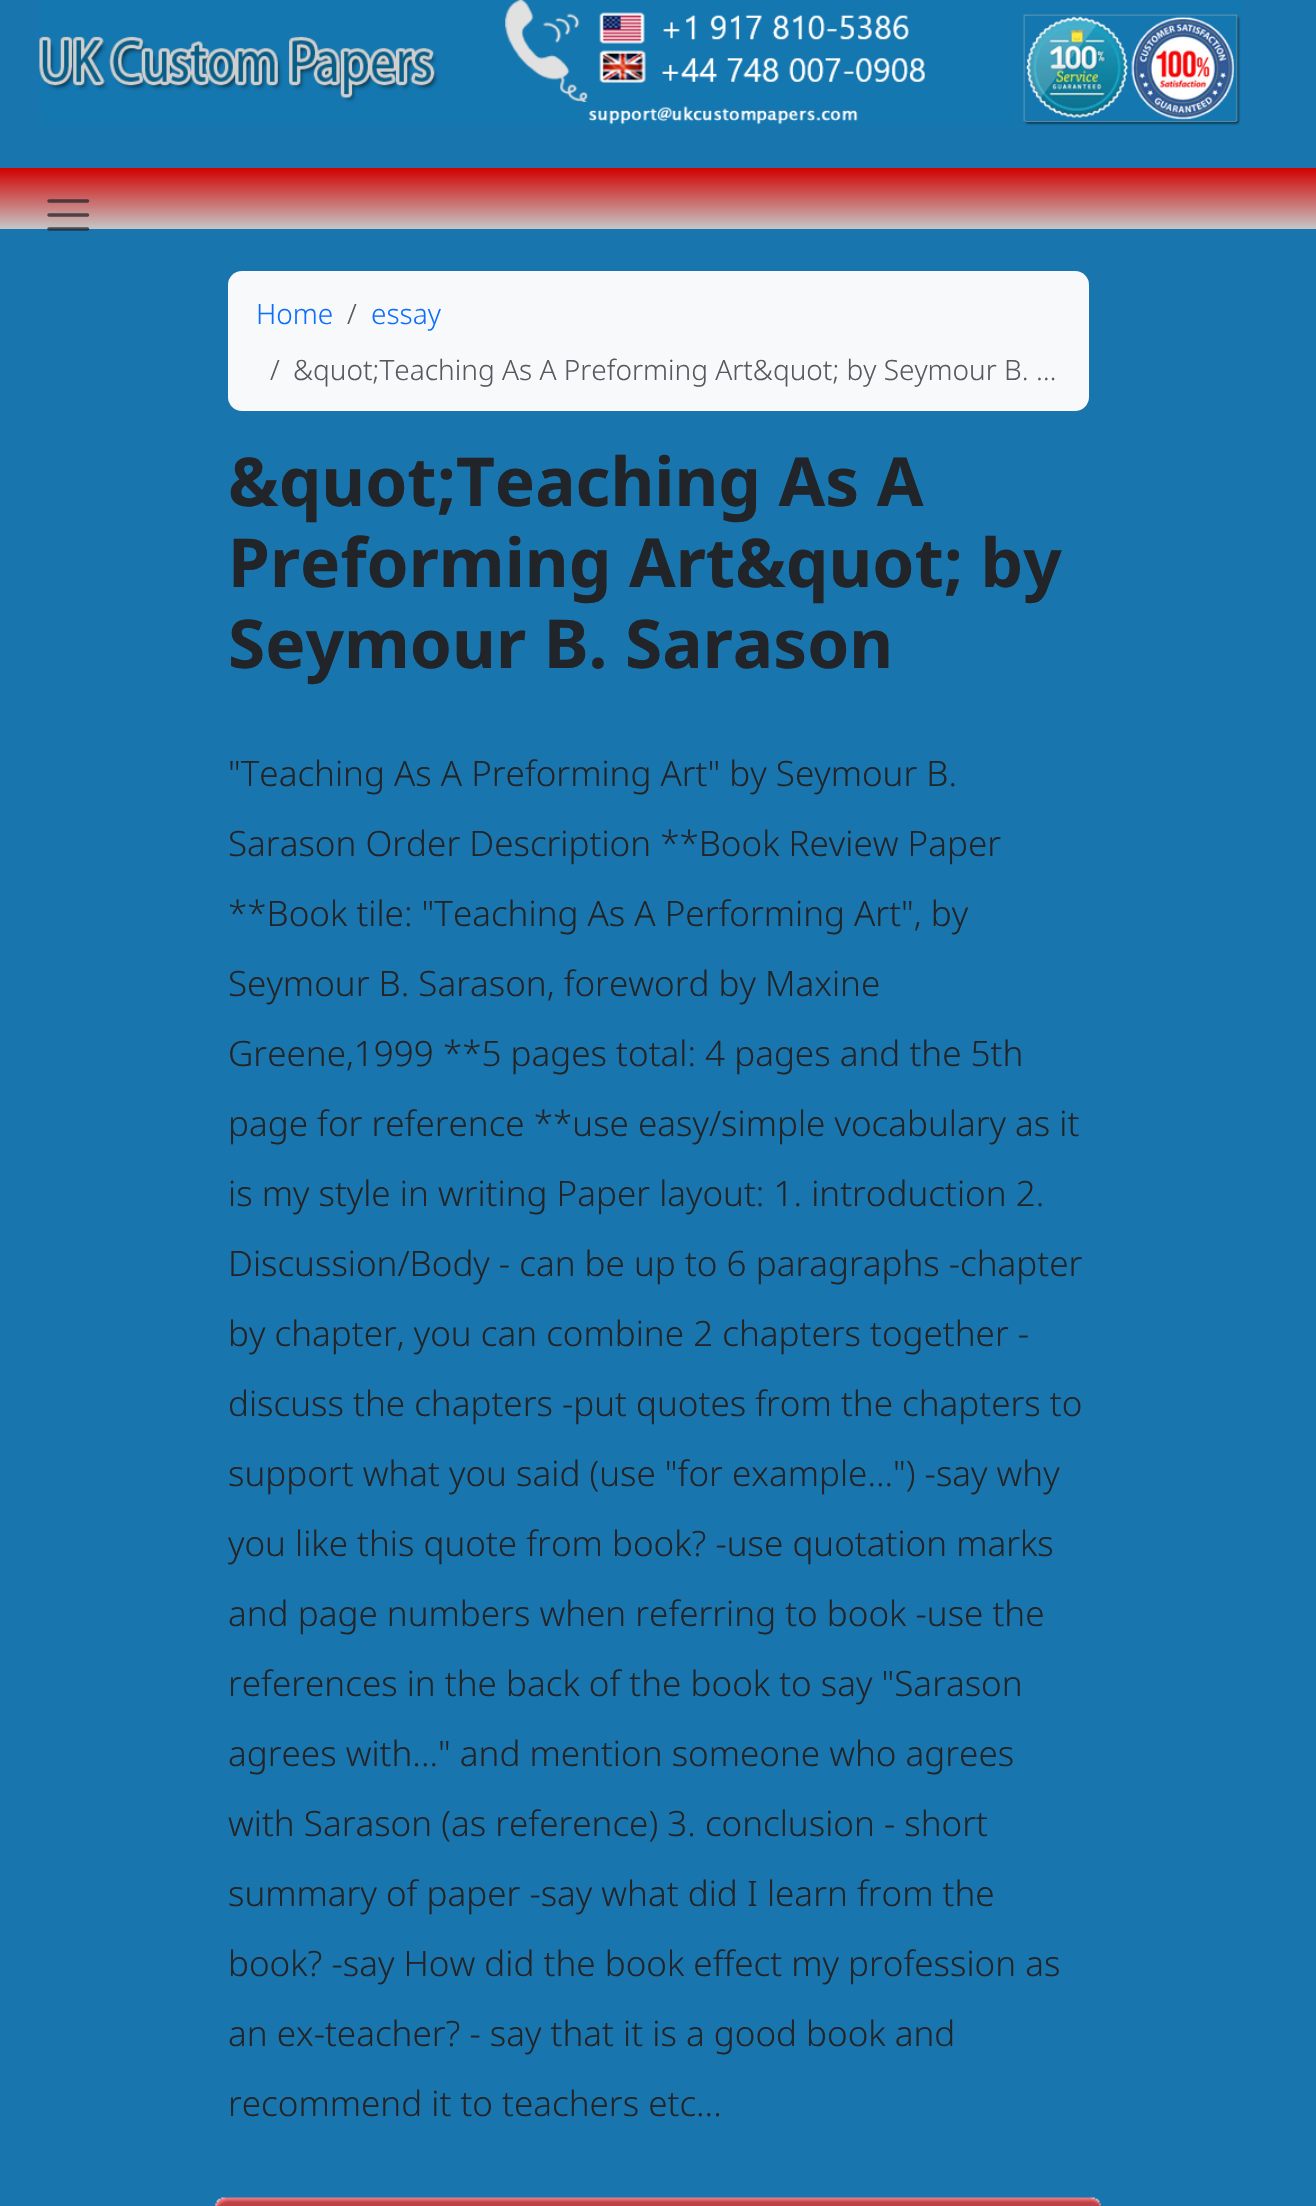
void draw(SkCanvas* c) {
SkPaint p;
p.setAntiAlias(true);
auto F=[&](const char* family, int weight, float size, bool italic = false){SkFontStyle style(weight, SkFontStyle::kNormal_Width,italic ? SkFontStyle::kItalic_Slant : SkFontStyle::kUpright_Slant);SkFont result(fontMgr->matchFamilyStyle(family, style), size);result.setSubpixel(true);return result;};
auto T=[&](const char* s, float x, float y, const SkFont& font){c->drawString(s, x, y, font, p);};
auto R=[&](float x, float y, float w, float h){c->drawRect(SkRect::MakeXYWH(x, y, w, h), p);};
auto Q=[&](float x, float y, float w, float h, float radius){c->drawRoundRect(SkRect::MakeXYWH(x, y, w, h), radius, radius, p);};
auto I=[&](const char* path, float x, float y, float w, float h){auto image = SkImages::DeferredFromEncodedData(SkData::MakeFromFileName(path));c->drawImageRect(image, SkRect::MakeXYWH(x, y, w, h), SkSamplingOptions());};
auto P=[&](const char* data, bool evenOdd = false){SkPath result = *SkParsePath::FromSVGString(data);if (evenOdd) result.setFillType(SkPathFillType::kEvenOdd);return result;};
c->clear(0xff1875ad);
I("1.png",39,0,1202,126);
{
const SkColor colors[] = {0xffd20000,0xffc6c6c6};
const float stops[] = {0,1};
const SkPoint ends[] = {{658,168}, {658,229}};
p.setShader(SkGradientShader::MakeLinear(ends, colors, stops, 2, SkTileMode::kClamp));
p.setAlpha(255);
}
R(0,168,1316,61);
p.setStroke(true);
p.setStrokeWidth(3.5);
p.setStrokeCap(SkPaint::kRound_Cap);
p.setShader(nullptr);
p.setColor(0xbf212529);
c->drawPath(P("M49 201h38.5m-38.5 14h38.5m-38.5 14h38.5"),p);
p.setStroke(false);
p.setColor(0xfff8f9fa);
Q(228,271,861,140,14);
auto f1 = F("Noto Sans",300,28);
p.setColor(0xff0d6efd);
T("Home",256,324,f1);
p.setColor(0xff575a5d);
T("/",347,324,f1);
p.setColor(0xff0d6efd);
T("essay",371,324,f1);
p.setColor(0xff575a5d);
T("/",270,380,f1);
T("&quot;Teaching As A Preforming Art&quot; by Seymour B. …",293,380,f1);
auto f2 = F("Noto Sans",700,67.5);
p.setColor(0xff212529);
T("&quot;Teaching As A",228,506,f2);
T("Preforming Art&quot; by",228,587,f2);
T("Seymour B. Sarason",228,668,f2);
auto f3 = F("Noto Sans",300,35);
T("\"Teaching As A Preforming Art\" by Seymour B.",228,786,f3);
T("Sarason Order Description **Book Review Paper",228,856,f3);
T("**Book tile: \"Teaching As A Performing Art\", by",228,926,f3);
T("Seymour B. Sarason, foreword by Maxine",228,996,f3);
T("Greene,1999 **5 pages total: 4 pages and the 5th",228,1066,f3);
T("page for reference **use easy/simple vocabulary as it",228,1136,f3);
T("is my style in writing Paper layout: 1. introduction 2.",228,1206,f3);
T("Discussion/Body - can be up to 6 paragraphs -chapter",228,1276,f3);
T("by chapter, you can combine 2 chapters together -",228,1346,f3);
T("discuss the chapters -put quotes from the chapters to",228,1416,f3);
T("support what you said (use \"for example...\") -say why",228,1486,f3);
T("you like this quote from book? -use quotation marks",228,1556,f3);
T("and page numbers when referring to book -use the",228,1626,f3);
T("references in the back of the book to say \"Sarason",228,1696,f3);
T("agrees with...\" and mention someone who agrees",228,1766,f3);
T("with Sarason (as reference) 3. conclusion - short",228,1836,f3);
T("summary of paper -say what did I learn from the",228,1906,f3);
T("book? -say How did the book effect my profession as",228,1976,f3);
T("an ex-teacher? - say that it is a good book and",228,2046,f3);
T("recommend it to teachers etc...",228,2116,f3);
I("2.png",215,2197,886,9);
}
